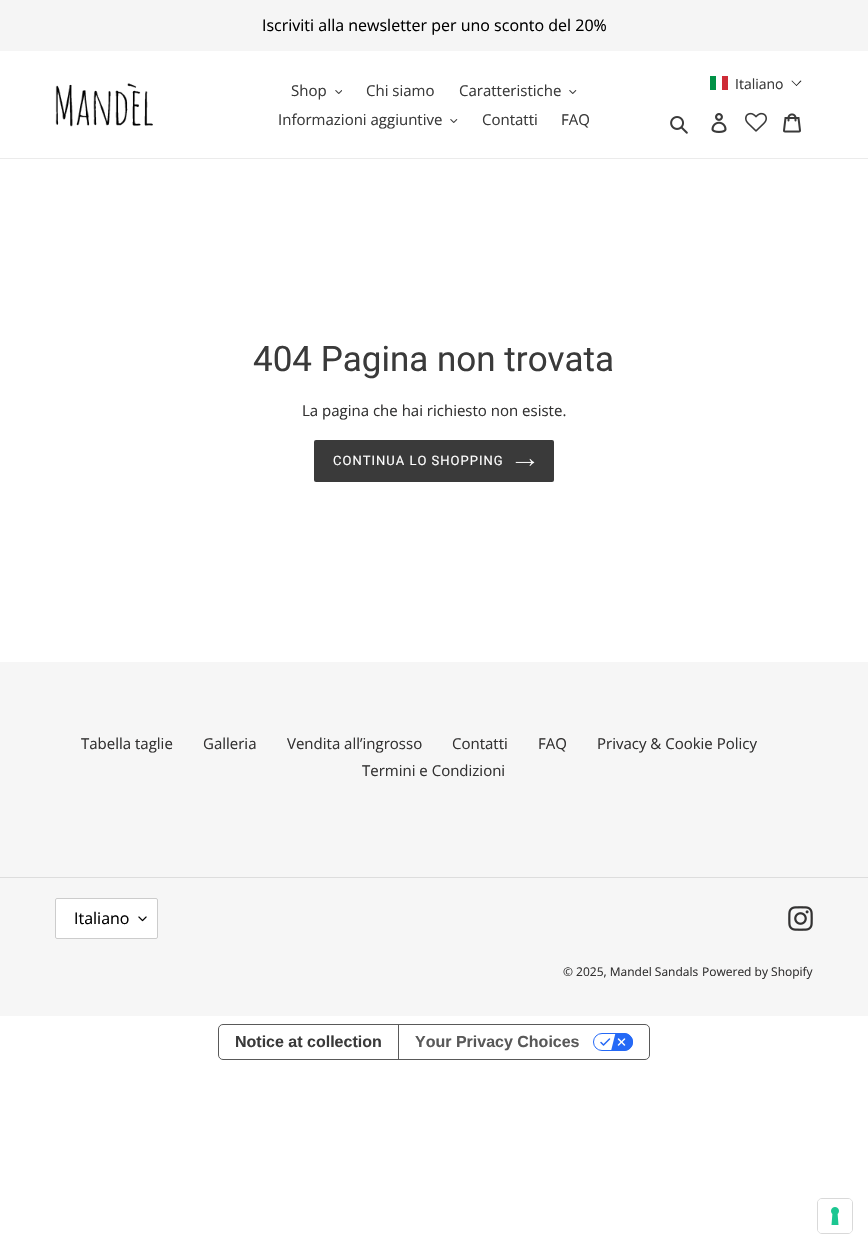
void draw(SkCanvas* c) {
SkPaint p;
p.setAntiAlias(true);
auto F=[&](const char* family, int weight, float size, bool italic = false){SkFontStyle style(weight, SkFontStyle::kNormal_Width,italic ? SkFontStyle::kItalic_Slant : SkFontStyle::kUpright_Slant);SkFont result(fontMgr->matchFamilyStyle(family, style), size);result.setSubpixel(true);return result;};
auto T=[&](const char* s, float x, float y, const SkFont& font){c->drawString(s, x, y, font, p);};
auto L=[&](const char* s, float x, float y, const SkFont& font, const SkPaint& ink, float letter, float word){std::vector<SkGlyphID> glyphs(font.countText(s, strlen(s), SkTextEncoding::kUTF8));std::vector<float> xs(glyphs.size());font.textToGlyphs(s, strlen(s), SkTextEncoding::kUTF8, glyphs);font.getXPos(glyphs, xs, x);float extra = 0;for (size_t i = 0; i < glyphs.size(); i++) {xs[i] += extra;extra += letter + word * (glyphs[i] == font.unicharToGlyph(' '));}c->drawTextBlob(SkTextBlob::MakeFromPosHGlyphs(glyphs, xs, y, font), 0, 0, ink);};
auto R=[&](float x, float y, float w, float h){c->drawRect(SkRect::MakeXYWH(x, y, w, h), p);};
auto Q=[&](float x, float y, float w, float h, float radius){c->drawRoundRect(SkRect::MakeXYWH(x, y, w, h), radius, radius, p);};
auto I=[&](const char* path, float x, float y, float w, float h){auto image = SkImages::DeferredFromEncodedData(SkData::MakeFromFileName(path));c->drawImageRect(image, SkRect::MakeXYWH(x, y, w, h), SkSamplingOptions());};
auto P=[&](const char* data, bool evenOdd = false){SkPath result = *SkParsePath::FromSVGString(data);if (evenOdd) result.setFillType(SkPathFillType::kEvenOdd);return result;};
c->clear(0xffffffff);
p.setColor(0xfff5f5f5);
R(0,0,868,51);
auto f1 = F("Open Sans",400,16);
p.setColor(0xff000000);
T("Iscriviti alla newsletter per uno sconto del 20%",262,31,f1);
p.setColor(0xffebebeb);
R(0,158,868,1);
I("1.png",55,83,98,44);
auto f2 = F("Open Sans",400,15);
p.setColor(0xff3a3a3a);
T("Shop",291,96,f2);
I("2.png",335,90,7,4);
T("Chi siamo",366,96,f2);
T("Caratteristiche",459,96,f2);
I("3.png",569,90,8,4);
T("Informazioni aggiuntive",278,125,f2);
I("3.png",450,119,8,4);
T("Contatti",482,125,f2);
T("FAQ",561,125,f2);
p.setColor(0xff009246);
R(710,76,6,14);
p.setColor(0xffce2b37);
R(722,76,6,14);
auto f3 = F("Open Sans",400,14);
p.setColor(0xff3a3a3a);
T("Italiano",735,89,f3);
p.setColor(0xff1a1a1a);
c->drawPath(P("M800.5 80.5l1 .5l-5 5l-.5-.5z"),p);
c->drawPath(P("M792 80.5l5 5l-.5 .5l-5-5z"),p);
I("4.png",670,116,18,18);
I("5.png",711,113,16,20);
I("6.png",745,112,22,20);
I("7.png",783,113,18,20);
auto f4 = F("Roboto",400,35);
p.setColor(0xff3a3a3a);
T("404 Pagina non trovata",253,371,f4);
p.setColor(0xff333232);
T("La pagina che hai richiesto non esiste.",302,416,f2);
p.setColor(0xff3a3a3a);
Q(314,440,240,42,2);
auto f5 = F("Roboto",400,13);
p.setColor(0xffffffff);
L("CONTINUA LO SHOPPING",333,465,f5,p,1,0);
I("8.png",515,458,20,8);
p.setColor(0xfff6f6f6);
R(0,662,868,354);
p.setColor(0xff333232);
T("Tabella taglie",81,749,f2);
T("Galleria",203,749,f2);
T("Vendita all’ingrosso",287,749,f2);
T("Contatti",452,749,f2);
T("FAQ",538,749,f2);
T("Privacy & Cookie Policy",597,749,f2);
T("Termini e Condizioni",362,776,f2);
p.setColor(0xffdddddd);
R(0,877,868,1);
p.setColor(0xffffffff);
Q(55,898,103,41,2);
I("9.png",138,916,9,6);
p.setStroke(true);
p.setStrokeWidth(1);
p.setColor(0xffcccccc);
c->drawRoundRect(SkRect::MakeXYWH(55.5,898.5,102,40),1.5,1.5,p);
p.setStroke(false);
p.setColor(0xff000000);
T("Italiano",74,924,f1);
I("10.png",788,906,25,25);
auto f6 = F("Open Sans",400,12);
p.setColor(0xff333232);
T("© 2025, Mandel Sandals",563,976,f6);
T("Powered by Shopify",702,976,f6);
p.setStroke(true);
p.setColor(0xff595959);
c->drawRoundRect(SkRect::MakeXYWH(218.5,1024.5,431,35),4.5,4.5,p);
auto f7 = F("Liberation Sans",700,16);
p.setStroke(false);
p.setColor(0xff3a3a3a);
T("Notice at collection",235,1047,f7);
p.setColor(0xff595959);
R(398,1025,1,34);
T("Your Privacy Choices",415,1047,f7);
I("11.png",593,1033,40,18);
p.setStroke(true);
p.setColor(0xffd9d9d9);
c->drawRoundRect(SkRect::MakeXYWH(817.5,1198.5,35,35),4.5,4.5,p);
p.setStroke(false);
p.setColor(0xffffffff);
Q(818,1199,34,34,4);
I("12.png",831,1207,8,18);
}
